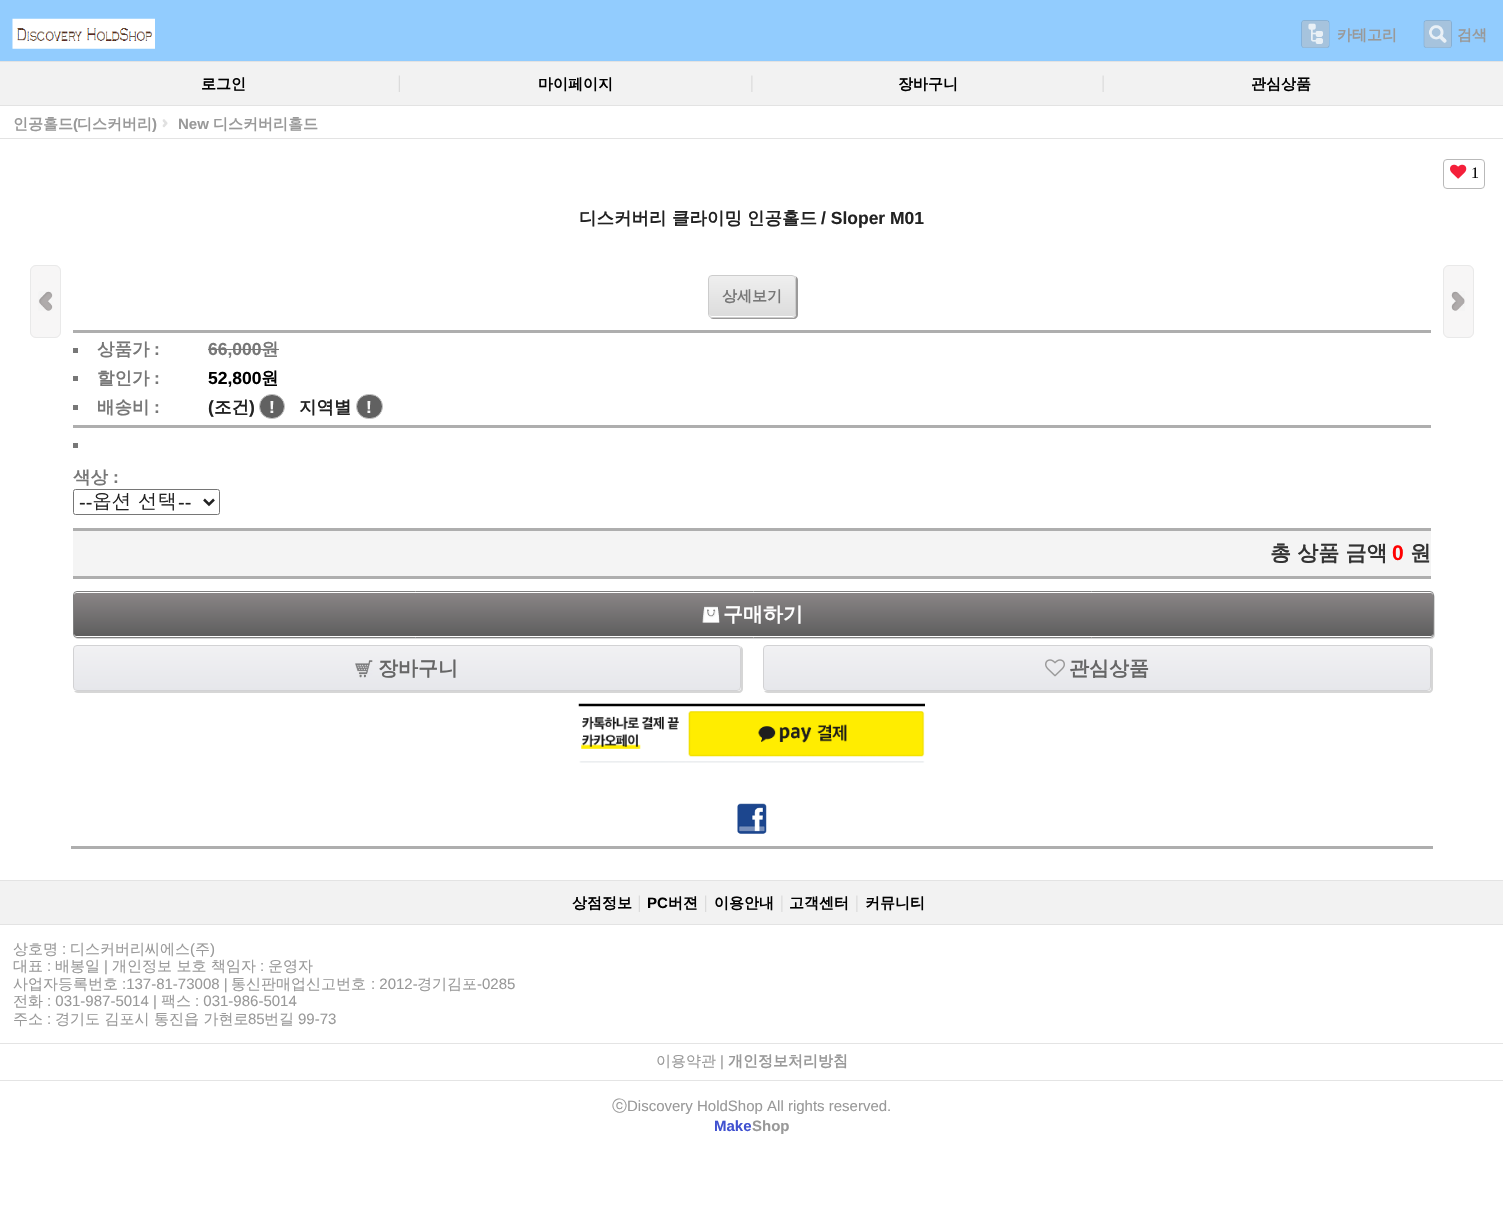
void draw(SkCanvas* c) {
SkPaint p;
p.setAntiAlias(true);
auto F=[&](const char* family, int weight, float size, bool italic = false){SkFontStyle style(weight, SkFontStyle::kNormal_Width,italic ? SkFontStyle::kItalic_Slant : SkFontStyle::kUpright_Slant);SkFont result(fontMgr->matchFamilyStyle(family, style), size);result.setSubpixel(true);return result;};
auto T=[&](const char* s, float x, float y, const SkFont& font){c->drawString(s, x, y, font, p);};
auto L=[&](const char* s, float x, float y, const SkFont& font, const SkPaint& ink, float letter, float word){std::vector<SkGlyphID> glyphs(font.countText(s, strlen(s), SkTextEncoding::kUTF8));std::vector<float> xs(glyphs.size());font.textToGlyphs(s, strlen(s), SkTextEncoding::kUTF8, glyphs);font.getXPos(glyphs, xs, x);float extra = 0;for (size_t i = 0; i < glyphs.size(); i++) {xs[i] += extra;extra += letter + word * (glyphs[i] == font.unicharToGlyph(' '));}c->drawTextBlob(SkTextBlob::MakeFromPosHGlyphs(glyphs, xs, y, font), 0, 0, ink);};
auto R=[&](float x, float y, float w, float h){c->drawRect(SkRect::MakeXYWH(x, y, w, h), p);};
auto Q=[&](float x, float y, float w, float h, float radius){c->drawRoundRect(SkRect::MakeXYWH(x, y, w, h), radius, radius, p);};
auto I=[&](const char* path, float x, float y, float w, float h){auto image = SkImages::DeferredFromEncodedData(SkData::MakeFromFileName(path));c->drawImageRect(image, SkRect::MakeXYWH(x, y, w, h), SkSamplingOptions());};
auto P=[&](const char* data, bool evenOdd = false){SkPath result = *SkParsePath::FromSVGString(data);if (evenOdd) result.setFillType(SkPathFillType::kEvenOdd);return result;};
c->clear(0xffffffff);
p.setColor(0xff92ccfe);
R(0,0,1503,61);
I("1.png",12,18,143,31);
I("2.png",1301,20,29,28);
auto f1 = F("WenQuanYi Zen Hei",700,15);
p.setColor(0xff999999);
T("카테고리",1337,40,f1);
I("3.png",1423,20,29,28);
T("검색",1457,40,f1);
p.setColor(0xfff2f2f2);
R(0,62,1503,43);
p.setColor(0xffe3e3e3);
R(0,61,1503,1);
R(0,105,1503,1);
I("4.png",398,75,2,17);
p.setColor(0xff000000);
T("로그인",201,89,f1);
I("5.png",751,75,2,17);
T("마이페이지",538,89,f1);
I("6.png",1102,75,2,17);
T("장바구니",898,89,f1);
T("관심상품",1251,89,f1);
p.setColor(0xffe3e3e3);
R(0,138,1503,1);
I("7.png",162,119,6,9);
p.setColor(0xff999999);
T("인공홀드",13,129,f1);
auto f2 = F("Liberation Sans",700,15);
T("(",73,129,f2);
T("디스커버리",77,129,f1);
T(")",152,129,f2);
T("New",178,129,f2);
T("디스커버리홀드",213,129,f1);
p.setStroke(true);
p.setStrokeWidth(1);
p.setColor(0xffb9b9b9);
c->drawRoundRect(SkRect::MakeXYWH(1443.5,159.5,41,29),3.5,3.5,p);
I("8.png",1450,164,17,15);
auto f3 = F("Liberation Serif",400,16);
p.setStroke(false);
p.setColor(0xff000000);
T("1",1471,178,f3);
auto f4 = F("WenQuanYi Zen Hei",700,17.5);
p.setColor(0xff222222);
T("디스커버리",579,224,f4);
T("클라이밍",672,224,f4);
T("인공홀드",747,224,f4);
auto f5 = F("Liberation Sans",700,17.5);
T("/ Sloper M01",821,224,f5);
p.setColor(0xffaeaeae);
R(73,330,1358,3);
p.setColor(0xfff7f6f6);
Q(30,265,31,73,6);
I("9.png",38,291,15,20);
p.setStroke(true);
p.setColor(0xffe9e9e9);
c->drawRoundRect(SkRect::MakeXYWH(30.5,265.5,30,72),5.5,5.5,p);
p.setStroke(false);
p.setColor(0xfff7f6f6);
Q(1443,265,31,73,6);
I("10.png",1451,291,14,20);
p.setStroke(true);
p.setColor(0xffe9e9e9);
c->drawRoundRect(SkRect::MakeXYWH(1443.5,265.5,30,72),5.5,5.5,p);
p.setStroke(false);
p.setColor(0xff9b9a9a);
c->drawPath(P("M710 317c0 1 2 2 3 2h81c2 0 4-2 4-4v-35c0-2-1-3-3-4c1 1 1 2 1 3v35c0 2-1 4-4 4h-81z"),p);
{
const SkColor colors[] = {0xffefefef,0xffdcdcdc};
const float stops[] = {0,1};
const SkPoint ends[] = {{752,276}, {752,316}};
p.setShader(SkGradientShader::MakeLinear(ends, colors, stops, 2, SkTileMode::kClamp));
p.setAlpha(255);
}
Q(709,276,86,40,2.5);
p.setStroke(true);
p.setShader(nullptr);
p.setColor(0xffcccccc);
c->drawRoundRect(SkRect::MakeXYWH(708.5,275.5,87,42),3.5,3.5,p);
p.setStroke(false);
p.setColor(0xff777777);
T("상세보기",722,301,f1);
R(73,348,5,5);
T("상품가",97,355,f4);
T(":",154,355,f5);
T("66,000",208,355,f5);
T("원",261,355,f4);
R(208,349,71,1);
R(73,376,5,5);
T("할인가",97,384,f4);
T(":",154,384,f5);
p.setColor(0xff000000);
T("52,800",208,384,f5);
T("원",261,384,f4);
p.setColor(0xff777777);
R(73,405,5,5);
T("배송비",97,413,f4);
T(":",154,413,f5);
p.setColor(0xff222222);
T("(",208,413,f5);
T("조건",214,413,f4);
T(")",249,413,f5);
p.setColor(0xff616161);
c->drawRoundRect(SkRect::MakeXYWH(259.5,394.5,25,24),12,12,p);
p.setStroke(true);
p.setColor(0xffc5c5c5);
c->drawRoundRect(SkRect::MakeXYWH(259.5,394.5,25,24),12,12,p);
p.setStroke(false);
p.setColor(0xfff7f7f7);
T("!",269,413,f5);
p.setColor(0xff222222);
T("지역별",299,413,f4);
p.setColor(0xff616161);
c->drawRoundRect(SkRect::MakeXYWH(356.5,394.5,26,24),12,12,p);
p.setStroke(true);
p.setColor(0xffc5c5c5);
c->drawRoundRect(SkRect::MakeXYWH(356.5,394.5,26,24),12,12,p);
p.setStroke(false);
p.setColor(0xfff7f7f7);
T("!",366,413,f5);
p.setColor(0xffaeaeae);
R(73,425,1358,3);
p.setColor(0xff777777);
R(73,443,5,5);
T("색상",73,483,f4);
T(":",113,483,f5);
p.setStroke(true);
p.setColor(0xff767676);
c->drawRoundRect(SkRect::MakeXYWH(73.5,489.5,146,25),2,2,p);
p.setStrokeWidth(2.5);
p.setColor(0xff222222);
c->drawPath(P("M204 499.5l5 5l5-5"),p);
auto f6 = F("Liberation Sans",400,20);
p.setStroke(false);
T("--",79,509,f6);
auto f7 = F("Dotum",400,20);
L("옵션 선택",92,509,f7,p,0,-1);
T("--",178,509,f6);
p.setColor(0xfff4f4f4);
R(73,531,1358,45);
p.setColor(0xffaeaeae);
R(73,528,1358,3);
R(73,576,1358,3);
auto f8 = F("WenQuanYi Zen Hei",700,21);
p.setColor(0xff333333);
T("총 상품 금액",1270,560,f8);
auto f9 = F("Liberation Sans",700,21);
p.setColor(0xffff0000);
T("0",1392,560,f9);
p.setColor(0xff333333);
T("원",1410,560,f8);
p.setColor(0xffd6d6d6);
c->drawPath(P("M75 637c0 1 2 2 3 2h1353c2 0 4-2 4-4v-38c0-1-1-2-1-3v40c0 2-2 4-4 4h-1354z"),p);
{
const SkColor colors[] = {0xff8a8687,0xff5e5e5e};
const float stops[] = {0,1};
const SkPoint ends[] = {{753,592}, {753,636}};
p.setShader(SkGradientShader::MakeLinear(ends, colors, stops, 2, SkTileMode::kClamp));
p.setAlpha(255);
}
Q(74,593,1359,43,2.5);
p.setStroke(true);
p.setStrokeWidth(1);
p.setShader(nullptr);
p.setColor(0xff808080);
c->drawRoundRect(SkRect::MakeXYWH(73.5,591.5,1360,46),3.5,3.5,p);
I("11.png",702,606,18,17);
auto f10 = F("WenQuanYi Zen Hei",700,20);
p.setStroke(false);
p.setColor(0xffffffff);
T("구매하기",723,621,f10);
p.setColor(0xffd6d6d6);
c->drawPath(P("M74 691c1 1 2 2 4 2h661c2 0 4-2 4-4v-39c0-2-1-3-3-4c1 1 1 2 1 3v39c0 2-1 3-3 3h-662z"),p);
{
const SkColor colors[] = {0xfff1f1f3,0xffe6e7eb};
const float stops[] = {0,1};
const SkPoint ends[] = {{407,646}, {407,690}};
p.setShader(SkGradientShader::MakeLinear(ends, colors, stops, 2, SkTileMode::kClamp));
p.setAlpha(255);
}
Q(74,646,666,44,2.5);
p.setStroke(true);
p.setShader(nullptr);
p.setColor(0xffd2d2d4);
c->drawRoundRect(SkRect::MakeXYWH(73.5,645.5,667,45),3.5,3.5,p);
I("12.png",355,660,18,18);
p.setStroke(false);
p.setColor(0xff666666);
T("장바구니",378,675,f10);
p.setColor(0xffd6d6d6);
c->drawPath(P("M764 691c1 1 2 2 4 2h661c2 0 4-2 4-4v-39c0-2-1-3-3-4c1 1 1 2 1 3v39c0 2-1 3-3 3h-662z"),p);
{
const SkColor colors[] = {0xfff1f1f3,0xffe6e7eb};
const float stops[] = {0,1};
const SkPoint ends[] = {{1097,646}, {1097,690}};
p.setShader(SkGradientShader::MakeLinear(ends, colors, stops, 2, SkTileMode::kClamp));
p.setAlpha(255);
}
Q(764,646,666,44,2.5);
p.setStroke(true);
p.setShader(nullptr);
p.setColor(0xffd2d2d4);
c->drawRoundRect(SkRect::MakeXYWH(763.5,645.5,667,45),3.5,3.5,p);
I("13.png",1045,659,20,18);
p.setStroke(false);
p.setColor(0xff666666);
T("관심상품",1069,675,f10);
I("14.png",578,703,347,60);
I("15.png",737,803,30,31);
p.setColor(0xffaeaeae);
R(71,846,1362,3);
p.setColor(0xfff2f2f2);
R(0,881,1503,43);
p.setColor(0xffe3e3e3);
R(0,880,1503,1);
R(0,924,1503,1);
p.setColor(0xff000000);
T("상점정보",572,908,f1);
I("4.png",638,895,2,17);
T("PC",647,908,f2);
T("버젼",668,908,f1);
I("16.png",705,895,2,17);
T("이용안내",714,908,f1);
I("5.png",781,895,2,17);
T("고객센터",789,908,f1);
I("5.png",856,895,2,17);
T("커뮤니티",865,908,f1);
p.setColor(0xffe4e4e4);
R(0,1043,1503,1);
auto f11 = F("WenQuanYi Zen Hei",500,15);
p.setColor(0xff999999);
T("상호명",13,954,f11);
auto f12 = F("Liberation Sans",400,15);
T(":",62,954,f12);
T("디스커버리씨에스",70,954,f11);
T("(",190,954,f12);
T("주",195,954,f11);
T(")",210,954,f12);
T("대표",13,971,f11);
T(":",47,971,f12);
T("배봉일",55,971,f11);
T("|",104,971,f12);
T("개인정보 보호 책임자",112,971,f11);
T(":",260,971,f12);
T("운영자",268,971,f11);
T("사업자등록번호",13,989,f11);
T(":137-81-73008 |",122,989,f12);
T("통신판매업신고번호",231,989,f11);
T(": 2012-",371,989,f12);
T("경기김포",417,989,f11);
T("-0285",477,989,f12);
T("전화",13,1006,f11);
T(": 031-987-5014 |",47,1006,f12);
T("팩스",161,1006,f11);
T(": 031-986-5014",195,1006,f12);
T("주소",13,1024,f11);
T(":",47,1024,f12);
T("경기도 김포시 통진읍 가현로",55,1024,f11);
T("85",248,1024,f12);
T("번길",264,1024,f11);
T("99-73",298,1024,f12);
p.setColor(0xffe4e4e4);
R(0,1080,1503,1);
p.setColor(0xff999999);
T("이용약관",656,1066,f11);
T("|",720,1066,f12);
T("개인정보처리방침",728,1066,f1);
T("ⓒ",612,1111,f11);
T("Discovery HoldShop All rights reserved.",627,1111,f12);
p.setColor(0xff4051d0);
T("Make",714,1131,f2);
p.setColor(0xff999999);
T("Shop",752,1131,f2);
}
